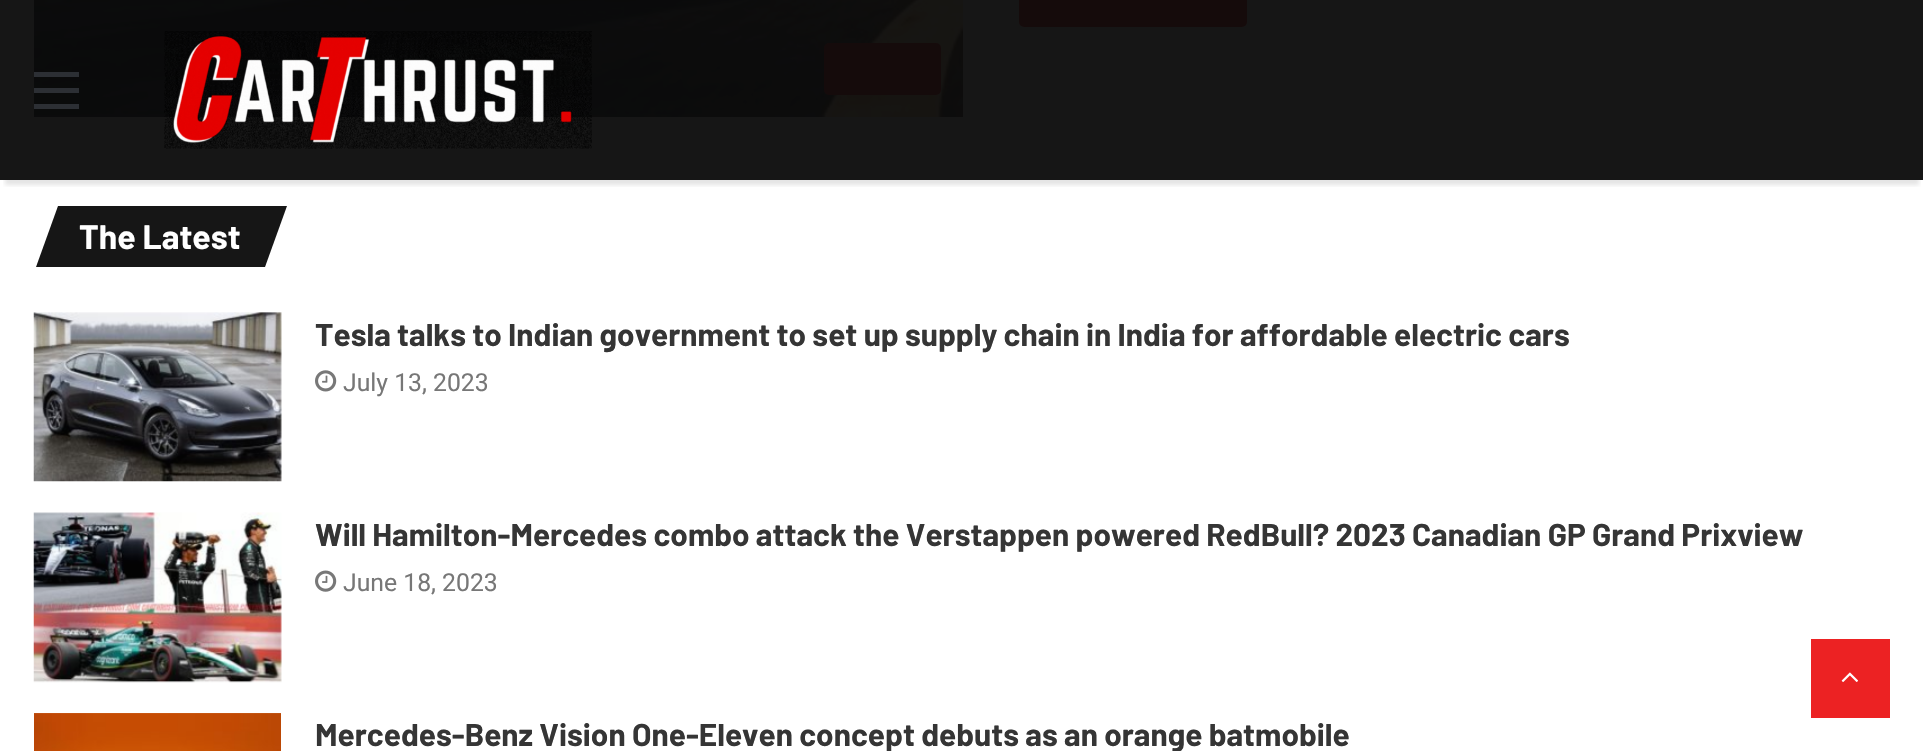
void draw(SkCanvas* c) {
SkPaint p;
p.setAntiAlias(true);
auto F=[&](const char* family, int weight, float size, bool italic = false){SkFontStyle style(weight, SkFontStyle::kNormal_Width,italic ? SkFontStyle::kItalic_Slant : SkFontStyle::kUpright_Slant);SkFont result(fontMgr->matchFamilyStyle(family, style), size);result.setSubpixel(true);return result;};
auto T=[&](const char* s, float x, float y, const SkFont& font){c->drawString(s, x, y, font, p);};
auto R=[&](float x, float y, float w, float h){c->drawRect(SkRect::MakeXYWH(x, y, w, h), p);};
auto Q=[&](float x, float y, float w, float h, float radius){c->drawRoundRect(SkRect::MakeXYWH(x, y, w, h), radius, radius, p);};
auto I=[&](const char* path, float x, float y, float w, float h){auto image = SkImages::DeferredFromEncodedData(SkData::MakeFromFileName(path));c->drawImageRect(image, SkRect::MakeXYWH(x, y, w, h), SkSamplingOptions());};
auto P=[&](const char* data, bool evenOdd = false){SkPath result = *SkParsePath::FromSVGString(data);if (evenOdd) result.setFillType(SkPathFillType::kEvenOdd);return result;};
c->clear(0xffffffff);
I("2.png",34,0,929,117);
p.setColor(0xfcec2223);
Q(824,43,117,52,5);
p.setColor(0xffec2425);
Q(1019,-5,228,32,5);
c->save();
c->clipRect(SkRect::MakeXYWH(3,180,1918,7));
p.setColor(0x1a000000);
p.setMaskFilter(SkMaskFilter::MakeBlur(kNormal_SkBlurStyle, 2));
c->drawRect(SkRect::MakeXYWH(5,14,1914,171),p);
p.setMaskFilter(nullptr);
c->restore();
p.setColor(0xf20a0a0a);
R(0,0,1923,180);
p.setColor(0xff2c2f34);
R(34,88,45,5);
R(34,72,45,5);
R(34,104,45,5);
I("1.png",164,31,428,118);
p.setColor(0xff161616);
c->drawPath(P("M58 206h229l-22 61h-229z"),p);
auto f1 = F("Barlow",700,33.75);
p.setColor(0xffffffff);
T("The Latest",79,249,f1);
I("3.png",33,312,249,170);
auto f2 = F("Barlow",700,31.5);
p.setColor(0xff353535);
T("Tesla talks to Indian government to set up supply chain in India for affordable electric cars",315,346,f2);
I("4.png",315,370,22,22);
auto f3 = F("Roboto",400,24.75);
p.setColor(0xff777777);
T("July 13, 2023",343,391,f3);
I("5.png",33,512,249,171);
p.setColor(0xff353535);
T("Will Hamilton-Mercedes combo attack the Verstappen powered RedBull? 2023 Canadian GP Grand Prixview",315,546,f2);
I("6.png",315,570,22,22);
p.setColor(0xff777777);
T("June 18, 2023",343,591,f3);
I("7.png",34,713,247,38);
p.setColor(0xff353535);
T("Mercedes-Benz Vision One-Eleven concept debuts as an orange batmobile",315,746,f2);
p.setColor(0xffec2223);
R(1811,639,79,79);
I("8.png",1841,672,17,10);
}
